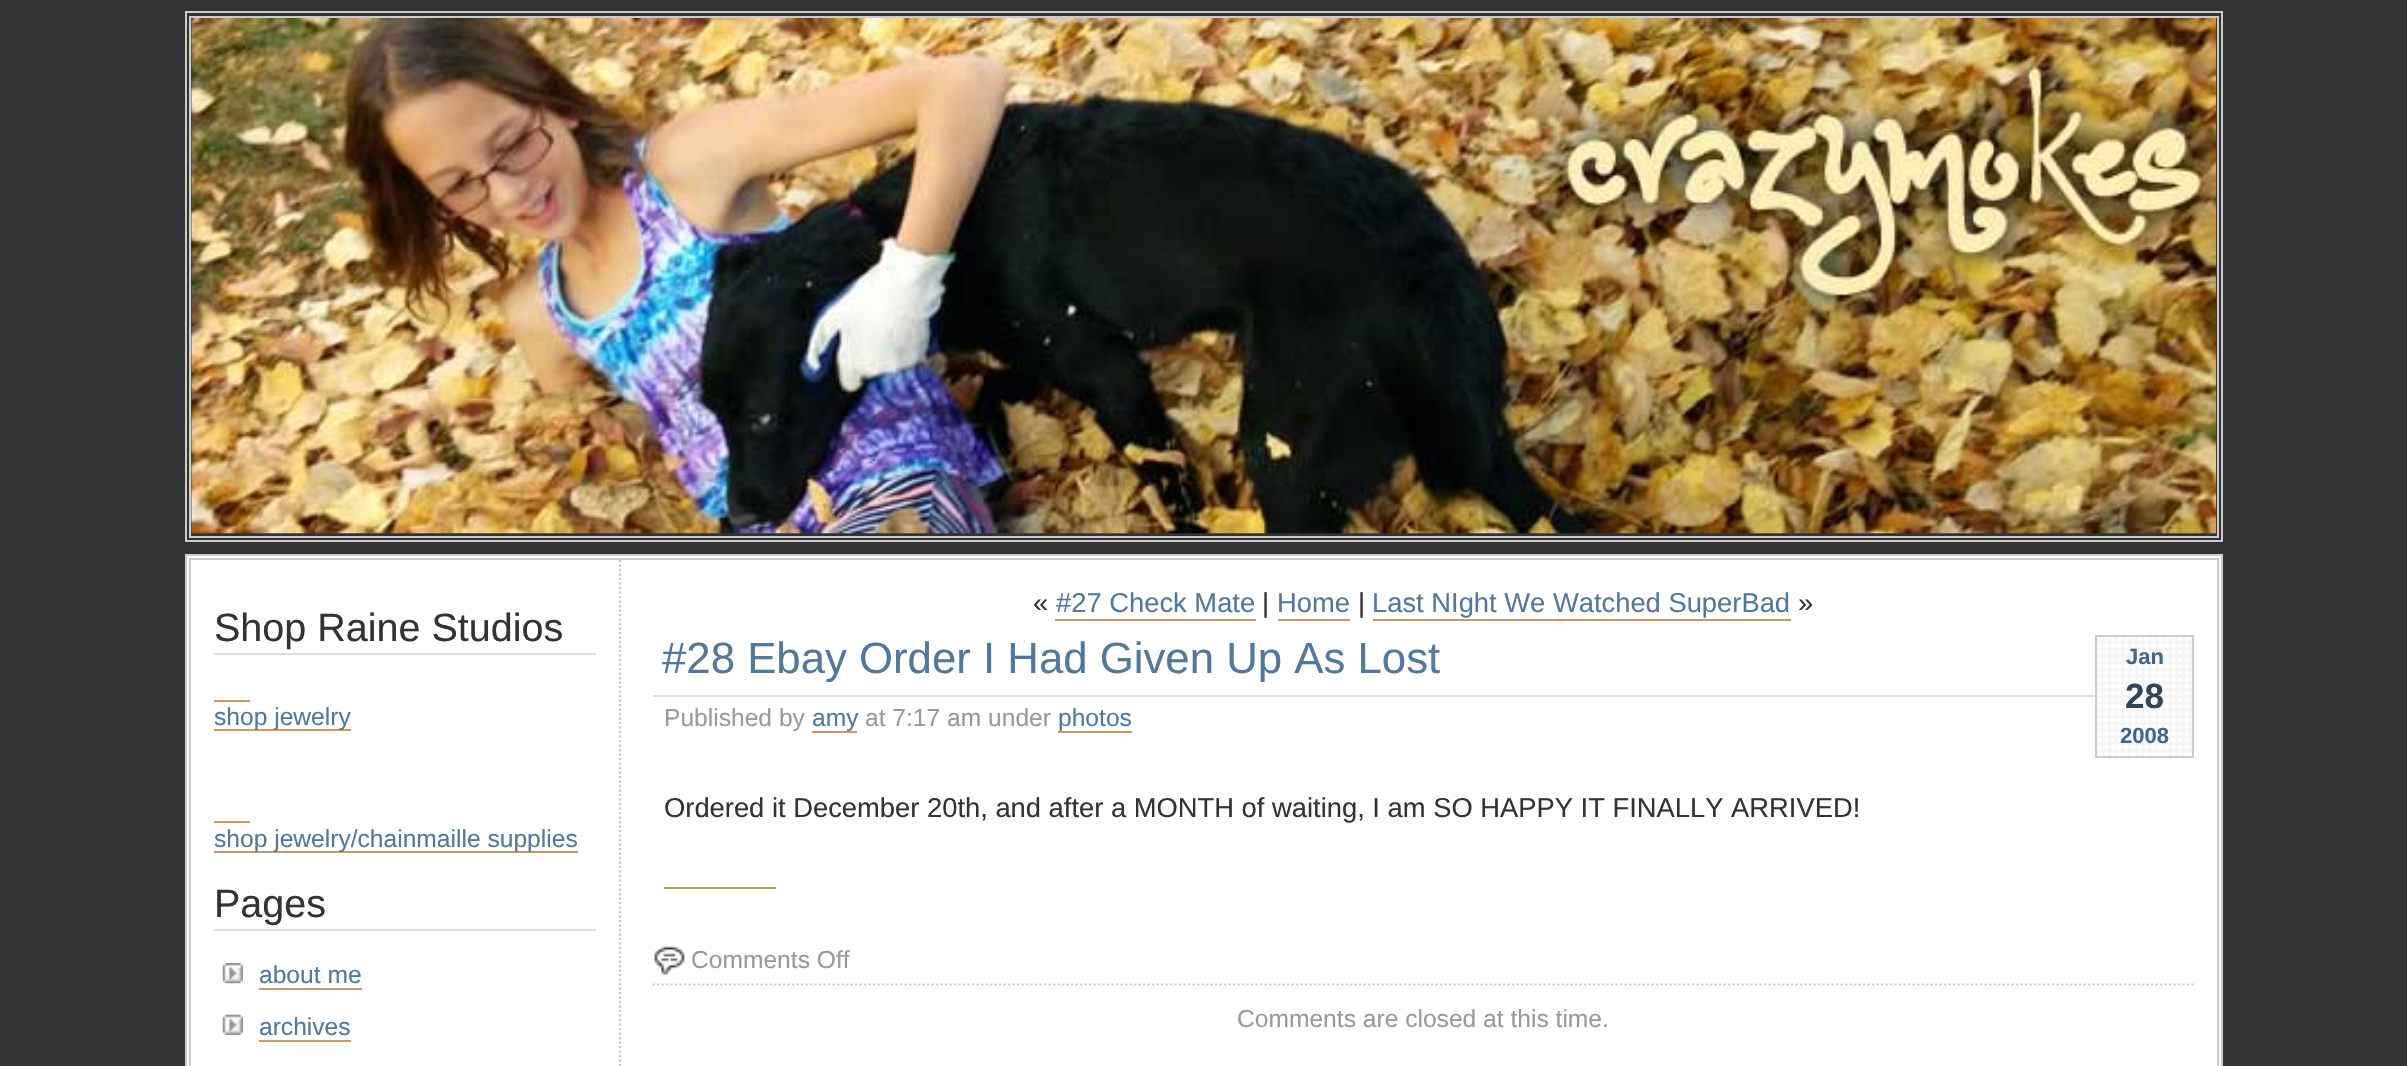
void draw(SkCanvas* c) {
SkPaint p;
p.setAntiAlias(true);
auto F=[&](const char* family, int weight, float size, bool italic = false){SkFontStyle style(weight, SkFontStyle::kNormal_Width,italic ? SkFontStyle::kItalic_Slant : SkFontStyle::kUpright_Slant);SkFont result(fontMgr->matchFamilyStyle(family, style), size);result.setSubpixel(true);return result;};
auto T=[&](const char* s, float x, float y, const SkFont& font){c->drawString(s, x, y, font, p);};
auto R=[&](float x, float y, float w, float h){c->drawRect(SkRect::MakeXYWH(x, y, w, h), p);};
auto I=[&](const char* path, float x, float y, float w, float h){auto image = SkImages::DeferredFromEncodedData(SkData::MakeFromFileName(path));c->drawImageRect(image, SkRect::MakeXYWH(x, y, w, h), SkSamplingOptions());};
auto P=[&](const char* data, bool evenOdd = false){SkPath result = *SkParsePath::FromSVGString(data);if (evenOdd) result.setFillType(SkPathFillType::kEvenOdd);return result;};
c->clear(0xff333333);
p.setStroke(true);
p.setStrokeWidth(2);
p.setColor(0xffcccccc);
c->drawRect(SkRect::MakeXYWH(186,12,2036,529),p);
c->drawRect(SkRect::MakeXYWH(190,17,2028,520),p);
I("1.png",191,18,2026,516);
p.setStroke(false);
p.setColor(0xffffffff);
c->drawRect(SkRect::MakeXYWH(186,555,2036,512),p);
p.setStroke(true);
p.setColor(0xffcccccc);
c->drawRect(SkRect::MakeXYWH(186,555,2036,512),p);
c->drawRect(SkRect::MakeXYWH(190,559,2028,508),p);
p.setStrokeWidth(2.2);
p.setPathEffect(SkDashPathEffect::Make({{2.25f,2.25f}}, 0));
c->drawPath(P("M620 560v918"),p);
p.setPathEffect(nullptr);
p.setStroke(false);
p.setColor(0xffdddddd);
R(214,653,382,2);
auto f1 = F("Liberation Sans",400,39.5);
p.setColor(0xff333333);
T("Shop Raine Studios",214,641,f1);
p.setColor(0xffcc9966);
R(214,700,36,2);
R(214,729,137,2);
auto f2 = F("Liberation Sans",400,24.6);
p.setColor(0xff557799);
T("shop jewelry",214,725,f2);
p.setColor(0xffcc9966);
R(214,821,36,2);
R(214,851,364,2);
p.setColor(0xff557799);
T("shop jewelry/chainmaille supplies",214,847,f2);
p.setColor(0xffdddddd);
R(214,929,382,2);
p.setColor(0xff333333);
T("Pages",214,917,f1);
I("2.png",222,963,21,21);
p.setColor(0xff557799);
T("about me",259,983,f2);
p.setColor(0xffcc9966);
R(259,988,103,2);
I("3.png",222,1014,21,21);
p.setColor(0xff557799);
T("archives",259,1035,f2);
p.setColor(0xffcc9966);
R(259,1040,92,2);
auto f3 = F("Liberation Sans",400,27.35);
p.setColor(0xff333333);
T("«",1033,612,f3);
p.setColor(0xff557799);
T("#27 Check Mate",1056,612,f3);
p.setColor(0xffcc9966);
R(1055,619,201,2);
p.setColor(0xff333333);
T("|",1262,612,f3);
p.setColor(0xff557799);
T("Home",1277,612,f3);
p.setColor(0xffcc9966);
R(1278,619,72,2);
p.setColor(0xff333333);
T("|",1358,612,f3);
p.setColor(0xff557799);
T("Last NIght We Watched SuperBad",1372,612,f3);
p.setColor(0xffcc9966);
R(1373,619,418,2);
p.setColor(0xff333333);
T("»",1798,612,f3);
p.setColor(0xffdddddd);
R(653,695,1442,2);
auto f4 = F("Liberation Sans",400,43.75);
p.setColor(0xff557799);
T("#28 Ebay Order I Had Given Up As Lost",662,673,f4);
I("4.png",2094,634,100,124);
p.setStroke(true);
p.setStrokeWidth(2);
p.setColor(0xffcccccc);
c->drawRect(SkRect::MakeXYWH(2096,636,97,121),p);
auto f5 = F("Liberation Sans",700,22);
p.setStroke(false);
p.setColor(0xff446688);
T("Jan",2126,664,f5);
auto f6 = F("Liberation Sans",700,35);
p.setColor(0xff334455);
T("28",2125,708,f6);
p.setColor(0xff446688);
T("2008",2120,743,f5);
p.setColor(0xff999999);
T("Published by",664,726,f2);
p.setColor(0xffcc9966);
R(812,731,45,2);
p.setColor(0xff557799);
T("amy",812,726,f2);
p.setColor(0xff999999);
T("at 7:17 am under",865,726,f2);
p.setColor(0xffcc9966);
R(1058,731,74,2);
p.setColor(0xff557799);
T("photos",1058,726,f2);
p.setColor(0xff333333);
T("Ordered it December 20th, and after a MONTH of waiting, I am SO HAPPY IT FINALLY ARRIVED!",664,817,f3);
p.setColor(0xffcc9966);
R(664,887,112,2);
I("5.png",654,946,31,29);
p.setStroke(true);
p.setStrokeWidth(2.2);
p.setColor(0xffcccccc);
p.setPathEffect(SkDashPathEffect::Make({{2.25f,2.25f}}, 0));
c->drawPath(P("M652.5 984.5h1541.5"),p);
p.setPathEffect(nullptr);
p.setStroke(false);
p.setColor(0xff999999);
T("Comments Off",691,968,f2);
T("Comments are closed at this time.",1237,1027,f2);
}
